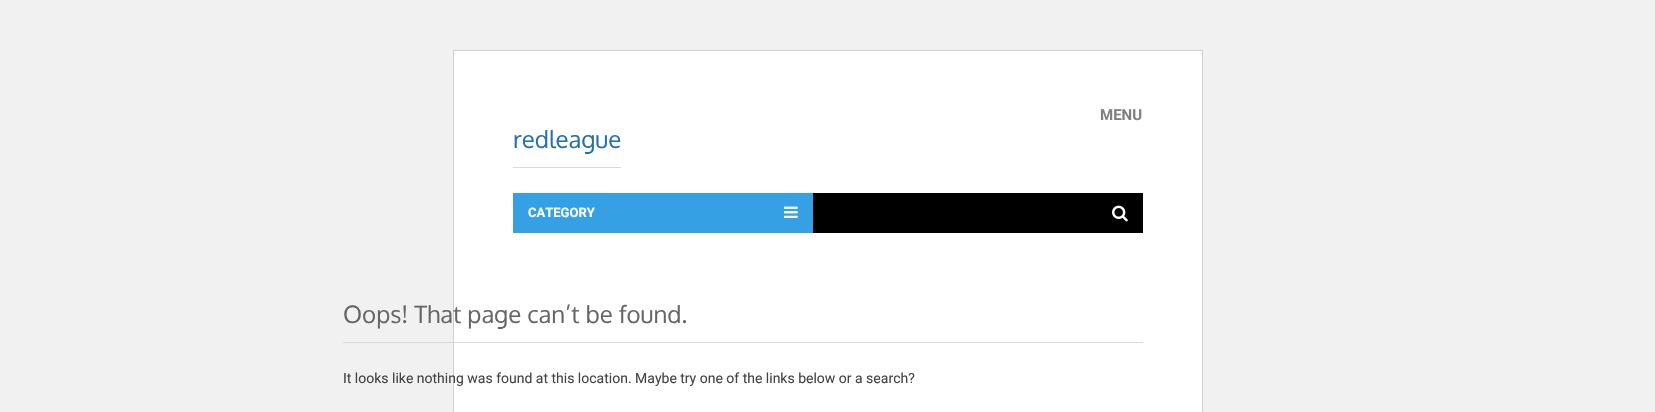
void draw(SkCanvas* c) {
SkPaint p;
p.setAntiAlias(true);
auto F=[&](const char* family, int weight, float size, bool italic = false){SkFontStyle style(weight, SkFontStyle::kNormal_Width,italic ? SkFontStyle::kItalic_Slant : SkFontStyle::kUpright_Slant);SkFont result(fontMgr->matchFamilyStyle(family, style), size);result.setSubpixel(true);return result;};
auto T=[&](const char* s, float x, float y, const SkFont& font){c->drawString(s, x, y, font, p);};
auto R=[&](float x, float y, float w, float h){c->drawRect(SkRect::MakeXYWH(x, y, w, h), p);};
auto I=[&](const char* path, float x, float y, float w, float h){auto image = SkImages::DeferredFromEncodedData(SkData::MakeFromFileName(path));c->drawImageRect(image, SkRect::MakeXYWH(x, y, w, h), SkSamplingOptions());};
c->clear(0xfff1f1f1);
p.setColor(0xffffffff);
c->drawRect(SkRect::MakeXYWH(453.5,50.5,749,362),p);
p.setStroke(true);
p.setStrokeWidth(1);
p.setColor(0xffccd0d4);
c->drawRect(SkRect::MakeXYWH(453.5,50.5,749,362),p);
auto f1 = F("Roboto",700,15);
p.setStroke(false);
p.setColor(0xff808080);
T("MENU",1100,120,f1);
p.setColor(0xffdadada);
R(513,167,108,1);
auto f2 = F("Oxygen",400,24);
p.setColor(0xff2271b1);
T("redleague",513,148,f2);
p.setColor(0xff000000);
R(813,193,330,40);
p.setColor(0xff35a0e3);
R(513,193,300,40);
auto f3 = F("Roboto",700,13);
p.setColor(0xffffffff);
T("CATEGORY",528,217,f3);
I("1.png",784,206,14,12);
I("2.png",1112,205,16,17);
p.setColor(0xffdadada);
R(343,342,800,1);
p.setColor(0xff666666);
T("Oops! That page can’t be found.",343,323,f2);
auto f4 = F("Roboto",400,14);
p.setColor(0xff444444);
T("It looks like nothing was found at this location. Maybe try one of the links below or a search?",343,383,f4);
}
